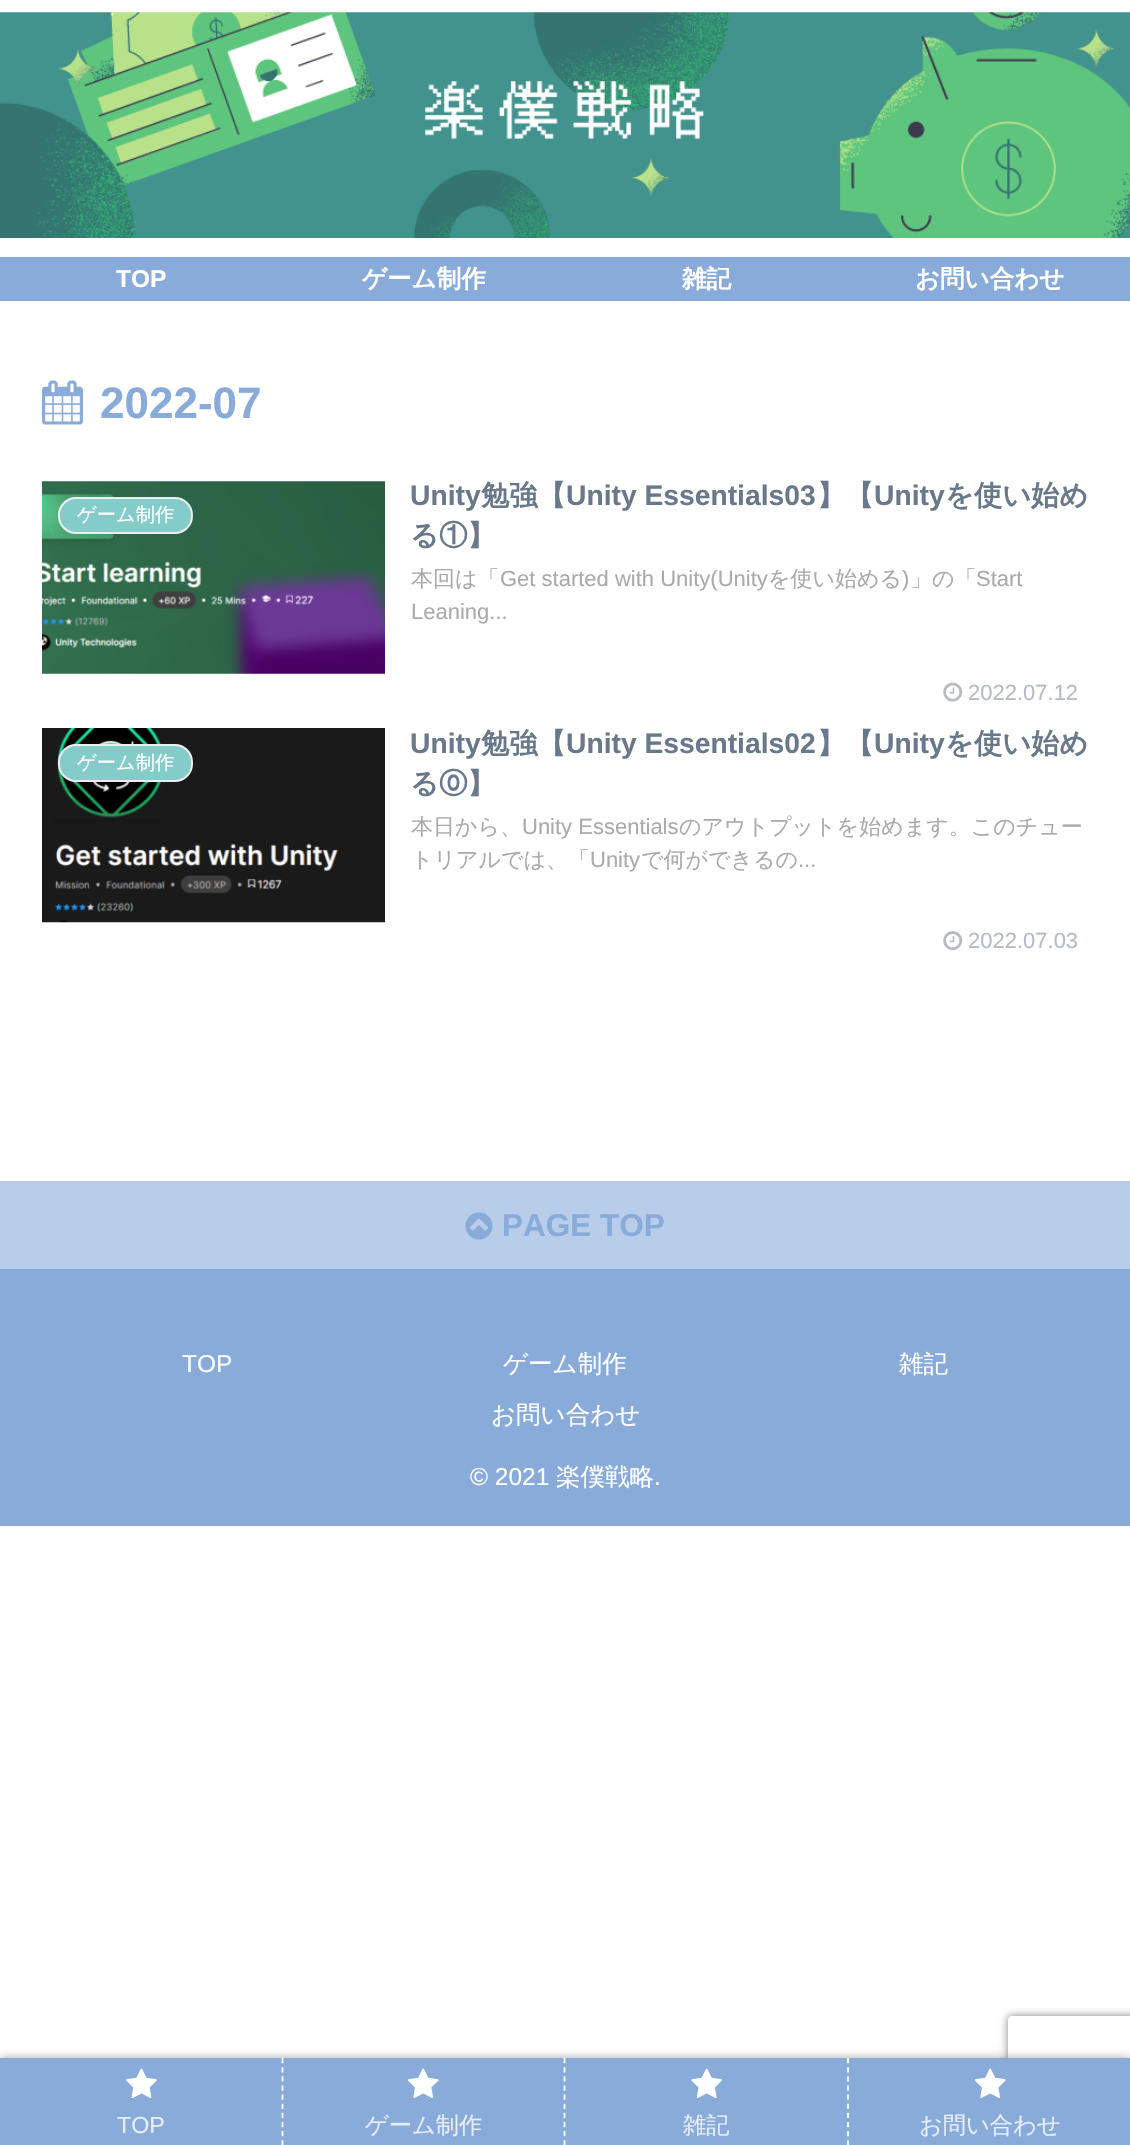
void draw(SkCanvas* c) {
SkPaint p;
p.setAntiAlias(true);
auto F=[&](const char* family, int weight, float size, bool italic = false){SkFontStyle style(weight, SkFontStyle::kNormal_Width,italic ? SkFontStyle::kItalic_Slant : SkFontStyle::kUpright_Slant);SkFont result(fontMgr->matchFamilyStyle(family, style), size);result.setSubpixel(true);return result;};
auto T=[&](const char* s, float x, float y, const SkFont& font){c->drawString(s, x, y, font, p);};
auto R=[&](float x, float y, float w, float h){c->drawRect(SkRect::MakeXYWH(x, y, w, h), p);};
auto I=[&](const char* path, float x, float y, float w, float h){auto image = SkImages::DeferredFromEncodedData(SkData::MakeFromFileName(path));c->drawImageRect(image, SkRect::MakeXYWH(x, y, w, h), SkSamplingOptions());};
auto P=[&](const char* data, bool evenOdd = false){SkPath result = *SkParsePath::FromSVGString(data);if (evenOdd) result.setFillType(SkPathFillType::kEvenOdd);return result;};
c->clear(0xffffffff);
I("1.png",0,12,1130,226);
p.setColor(0xff88abda);
R(0,257,1130,44);
auto f1 = F("Liberation Sans",700,24.5);
p.setColor(0xffffffff);
T("TOP",116,287,f1);
auto f2 = F("WenQuanYi Zen Hei",700,24.5);
T("ゲーム制作",362,287,f2);
T("雑記",682,287,f2);
T("お問い合わせ",915,287,f2);
I("2.png",42,380,41,45);
auto f3 = F("Liberation Sans",700,44);
p.setColor(0xff88abda);
T("2022-07",100,418,f3);
I("3.png",42,481,343,193);
p.setColor(0xff84ccc9);
c->drawRoundRect(SkRect::MakeXYWH(59,498,133,35),17,17,p);
p.setStroke(true);
p.setStrokeWidth(2);
p.setColor(0xffeeeeee);
c->drawRoundRect(SkRect::MakeXYWH(59,498,133,35),17,17,p);
auto f4 = F("WenQuanYi Zen Hei",500,19.25);
p.setStroke(false);
p.setColor(0xffffffff);
T("ゲーム制作",77,521,f4);
auto f5 = F("Liberation Sans",700,28.25);
p.setColor(0xff69788a);
T("Unity",410,505,f5);
auto f6 = F("WenQuanYi Zen Hei",700,28.25);
T("勉強【",481,505,f6);
T("Unity Essentials03",566,505,f5);
T("】【",817,505,f6);
T("Unity",874,505,f5);
T("を使い始め",945,505,f6);
T("る①】",410,545,f6);
auto f7 = F("WenQuanYi Zen Hei",500,22);
p.setColor(0xffaaaaaa);
T("本回は「",411,586,f7);
auto f8 = F("Liberation Sans",400,22);
T("Get started with Unity(Unity",500,586,f8);
T("を使い始める",768,586,f7);
T(")",902,586,f8);
T("」の「",910,586,f7);
T("Start",976,586,f8);
T("Leaning...",411,619,f8);
I("4.png",943,682,20,20);
p.setColor(0xffb4bbc5);
T("2022.07.12",968,700,f8);
I("5.png",42,728,343,195);
p.setColor(0xff84ccc9);
c->drawRoundRect(SkRect::MakeXYWH(59,745,133,36),17,17,p);
p.setStroke(true);
p.setColor(0xffeeeeee);
c->drawRoundRect(SkRect::MakeXYWH(59,745,133,36),17,17,p);
p.setStroke(false);
p.setColor(0xffffffff);
T("ゲーム制作",77,769,f4);
p.setColor(0xff69788a);
T("Unity",410,753,f5);
T("勉強【",481,753,f6);
T("Unity Essentials02",566,753,f5);
T("】【",817,753,f6);
T("Unity",874,753,f5);
T("を使い始め",945,753,f6);
T("る⓪】",410,793,f6);
p.setColor(0xffaaaaaa);
T("本日から、",411,834,f7);
T("Unity Essentials",522,834,f8);
T("のアウトプットを始めます。このチュー",679,834,f7);
T("トリアルでは、「",411,867,f7);
T("Unity",590,867,f8);
T("で何ができるの",641,867,f7);
T("...",798,867,f8);
I("6.png",943,931,20,20);
p.setColor(0xffb4bbc5);
T("2022.07.03",968,948,f8);
p.setColor(0xffb8cde9);
R(0,1181,1130,88);
I("7.png",465,1212,28,28);
auto f9 = F("Liberation Sans",700,31.5);
p.setColor(0xff88abda);
T("PAGE TOP",502,1236,f9);
R(0,1269,1130,257);
auto f10 = F("Liberation Sans",400,24.5);
p.setColor(0xffffffff);
T("TOP",182,1372,f10);
auto f11 = F("WenQuanYi Zen Hei",500,24.5);
T("ゲーム制作",503,1372,f11);
T("雑記",899,1372,f11);
T("お問い合わせ",491,1423,f11);
T("© 2021",470,1485,f10);
T("楽僕戦略",556,1485,f11);
T(".",654,1485,f10);
p.setColor(0xffa9a9a9);
p.setMaskFilter(SkMaskFilter::MakeBlur(kNormal_SkBlurStyle, 4.5));
c->drawRect(SkRect::MakeXYWH(0,2058,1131,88),p);
p.setMaskFilter(nullptr);
c->save();
c->clipPath(P("M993 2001h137v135h-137zm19 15h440c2 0 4 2 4 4v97c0 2-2 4-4 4h-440c-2 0-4-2-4-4v-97c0-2 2-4 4-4z",true),true);
p.setColor(0xff808080);
p.setMaskFilter(SkMaskFilter::MakeBlur(kNormal_SkBlurStyle, 4.5));
c->drawRoundRect(SkRect::MakeXYWH(1008,2016,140,105),4,4,p);
p.setMaskFilter(nullptr);
c->restore();
p.setColor(0xff88abda);
R(0,2058,1130,87);
p.setStroke(true);
p.setStrokeWidth(1.8);
p.setColor(0xffffffff);
p.setPathEffect(SkDashPathEffect::Make({{5.25f,3.89f}}, 0));
c->drawPath(P("M282.5 2058v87.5"),p);
p.setPathEffect(nullptr);
I("8.png",126,2068,31,30);
auto f12 = F("Liberation Sans",400,23.25);
p.setStroke(false);
p.setColor(0xffe7eef8);
T("TOP",117,2133,f12);
p.setStroke(true);
p.setColor(0xffffffff);
p.setPathEffect(SkDashPathEffect::Make({{5.25f,3.89f}}, 0));
c->drawPath(P("M564.5 2058v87.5"),p);
p.setPathEffect(nullptr);
I("9.png",407,2068,32,30);
auto f13 = F("WenQuanYi Zen Hei",500,23.25);
p.setStroke(false);
p.setColor(0xffe7eef8);
T("ゲーム制作",365,2133,f13);
p.setStroke(true);
p.setColor(0xffffffff);
p.setPathEffect(SkDashPathEffect::Make({{5.25f,3.89f}}, 0));
c->drawPath(P("M848 2058v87.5"),p);
p.setPathEffect(nullptr);
I("10.png",691,2068,31,30);
p.setStroke(false);
p.setColor(0xffe7eef8);
T("雑記",683,2133,f13);
I("11.png",974,2068,32,30);
T("お問い合わせ",919,2133,f13);
}
